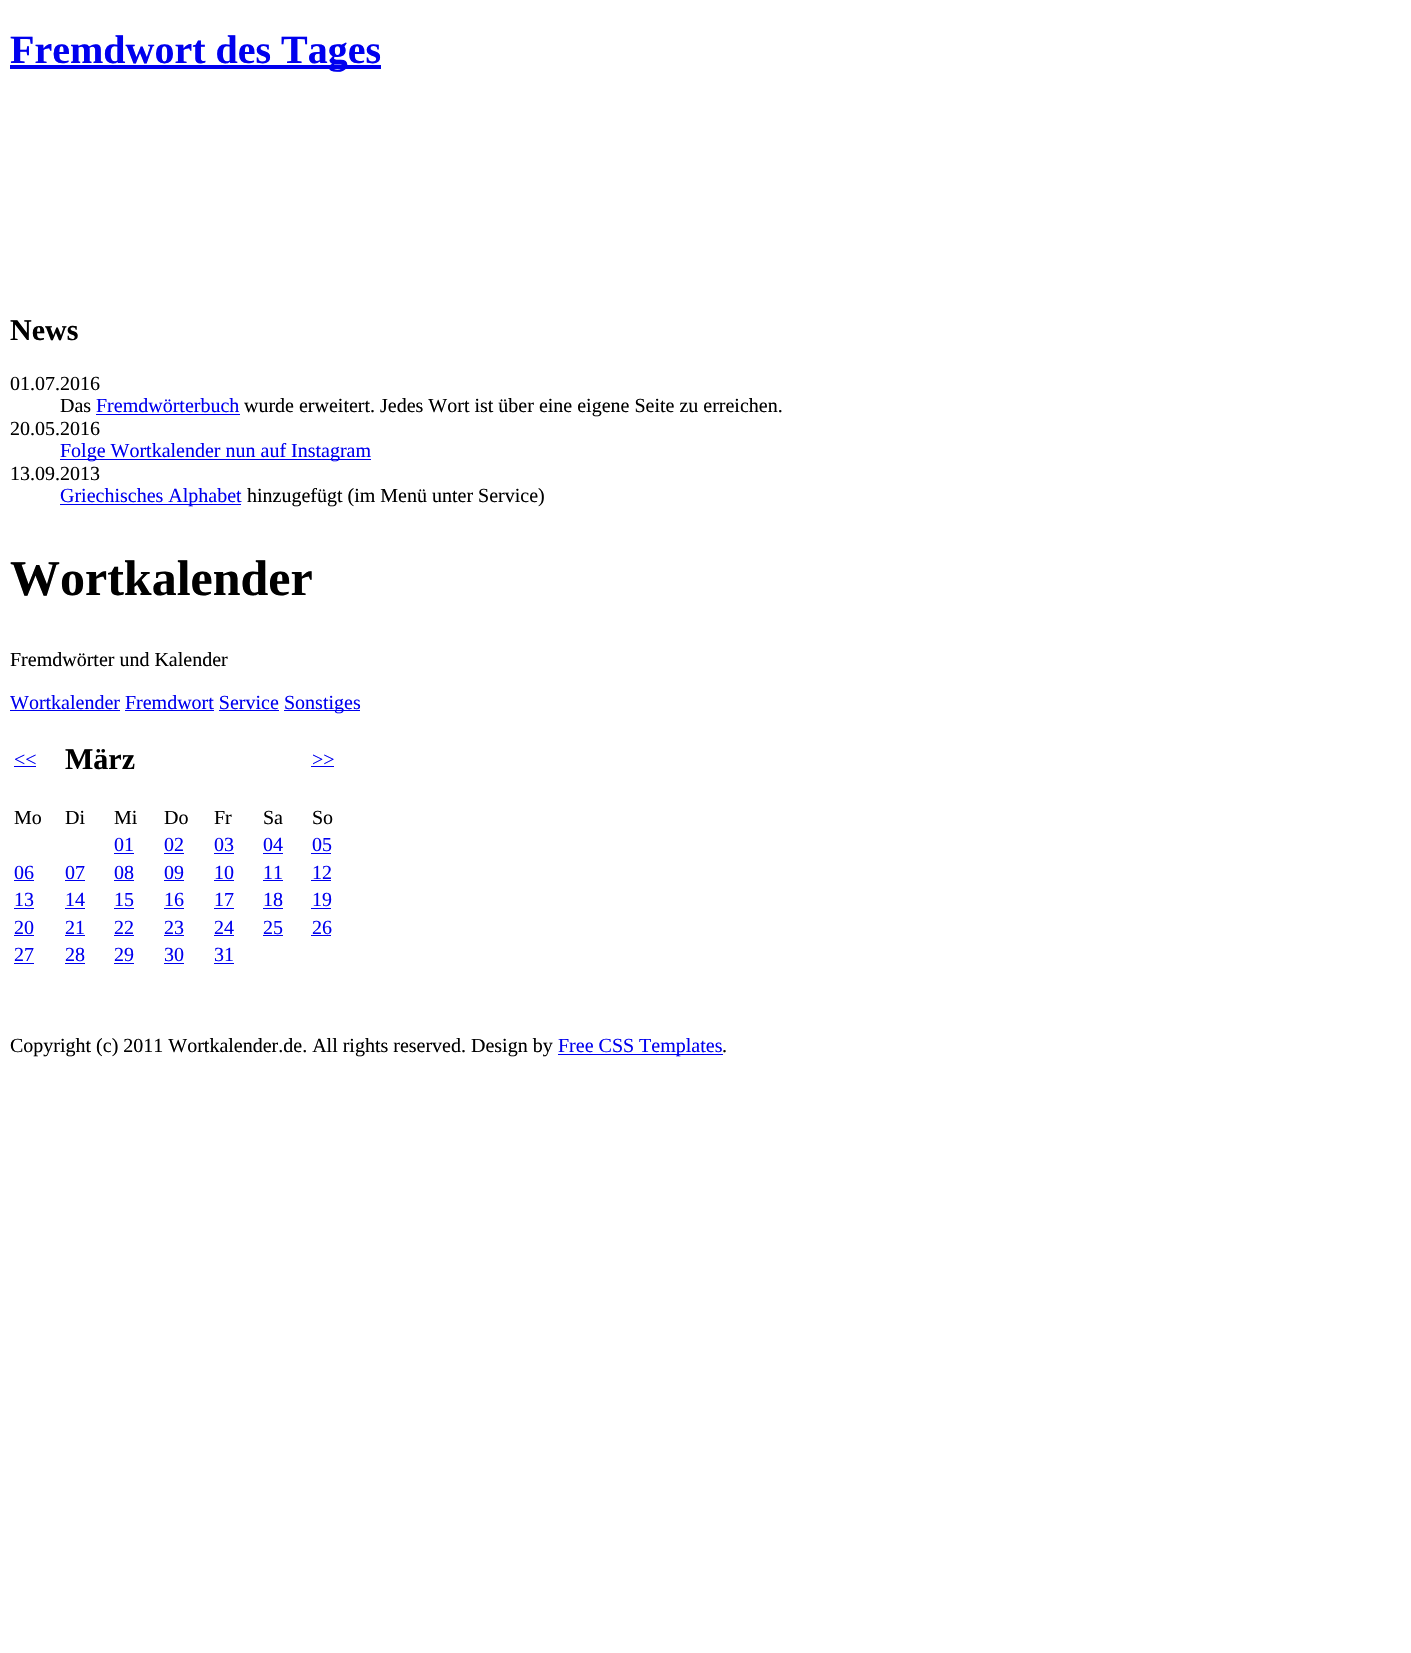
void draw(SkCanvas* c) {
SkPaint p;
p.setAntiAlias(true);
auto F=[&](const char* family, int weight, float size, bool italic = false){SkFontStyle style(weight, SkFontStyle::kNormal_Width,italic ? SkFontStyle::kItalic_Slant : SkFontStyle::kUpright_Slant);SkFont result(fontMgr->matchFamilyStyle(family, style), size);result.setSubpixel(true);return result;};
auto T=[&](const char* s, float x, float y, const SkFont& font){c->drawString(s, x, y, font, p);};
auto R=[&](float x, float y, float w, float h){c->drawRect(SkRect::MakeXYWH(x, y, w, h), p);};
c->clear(0xffffffff);
p.setColor(0xff0000ee);
R(10,65,371,4);
auto f1 = F("Liberation Serif",700,40);
T("Fremdwort des Tages",10,63,f1);
auto f2 = F("Liberation Serif",700,30);
p.setColor(0xff000000);
T("News",10,340,f2);
auto f3 = F("Liberation Serif",400,20);
T("01.07.2016",10,390,f3);
T("Das",60,412,f3);
p.setColor(0xff0000ee);
T("Fremdwörterbuch",96,412,f3);
R(96,414,144,1);
p.setColor(0xff000000);
T("wurde erweitert. Jedes Wort ist über eine eigene Seite zu erreichen.",244,412,f3);
T("20.05.2016",10,435,f3);
p.setColor(0xff0000ee);
R(60,459,311,1);
T("Folge Wortkalender nun auf Instagram",60,457,f3);
p.setColor(0xff000000);
T("13.09.2013",10,480,f3);
p.setColor(0xff0000ee);
R(60,504,181,1);
T("Griechisches Alphabet",60,502,f3);
p.setColor(0xff000000);
T("hinzugefügt (im Menü unter Service)",247,502,f3);
auto f4 = F("Liberation Serif",700,50);
T("Wortkalender",10,595,f4);
T("Fremdwörter und Kalender",10,666,f3);
p.setColor(0xff0000ee);
T("Wortkalender Fremdwort Service",10,709,f3);
R(10,710,110,1);
R(284,710,76,1);
T("Sonstiges",284,709,f3);
R(125,710,89,1);
R(219,710,60,1);
T("<<",14,766,f3);
R(14,766,22,1);
p.setColor(0xff000000);
T("März",65,769,f2);
p.setColor(0xff0000ee);
T(">>",312,766,f3);
R(311,766,23,1);
p.setColor(0xff000000);
T("Mo",14,824,f3);
T("Di",65,824,f3);
T("Mi",114,824,f3);
T("Do",164,824,f3);
T("Fr",214,824,f3);
T("Sa",263,824,f3);
T("So",312,824,f3);
p.setColor(0xff0000ee);
T("01",114,851,f3);
R(114,853,20,1);
T("02",164,851,f3);
R(164,853,20,1);
T("03",214,851,f3);
R(214,853,20,1);
T("04",263,851,f3);
R(263,853,20,1);
T("05",312,851,f3);
R(311,853,20,1);
T("06",14,879,f3);
R(14,880,20,1);
T("07",65,879,f3);
R(65,880,20,1);
T("08",114,879,f3);
R(114,880,20,1);
T("09",164,879,f3);
R(164,880,20,1);
T("10",214,879,f3);
R(214,880,20,1);
T("11",263,879,f3);
R(263,880,20,1);
T("12",312,879,f3);
R(311,880,20,1);
T("13",14,906,f3);
R(14,908,20,1);
T("14",65,906,f3);
R(65,908,20,1);
T("15",114,906,f3);
R(114,908,20,1);
T("16",164,906,f3);
R(164,908,20,1);
T("17",214,906,f3);
R(214,908,20,1);
T("18",263,906,f3);
R(263,908,20,1);
T("19",312,906,f3);
R(311,908,20,1);
T("20",14,934,f3);
R(14,935,20,1);
T("21",65,934,f3);
R(65,935,20,1);
T("22",114,934,f3);
R(114,935,20,1);
T("23",164,934,f3);
R(164,935,20,1);
T("24",214,934,f3);
R(214,935,20,1);
T("25",263,934,f3);
R(263,935,20,1);
T("26",312,934,f3);
R(311,935,20,1);
T("27",14,961,f3);
R(14,963,20,1);
T("28",65,961,f3);
R(65,963,20,1);
T("29",114,961,f3);
R(114,963,20,1);
T("30",164,961,f3);
R(164,963,20,1);
T("31",214,961,f3);
R(214,963,20,1);
p.setColor(0xff000000);
T("Copyright (c) 2011 Wortkalender.de. All rights reserved. Design by",10,1052,f3);
p.setColor(0xff0000ee);
R(558,1054,165,1);
T("Free CSS Templates",558,1052,f3);
p.setColor(0xff000000);
T(".",722,1052,f3);
}
